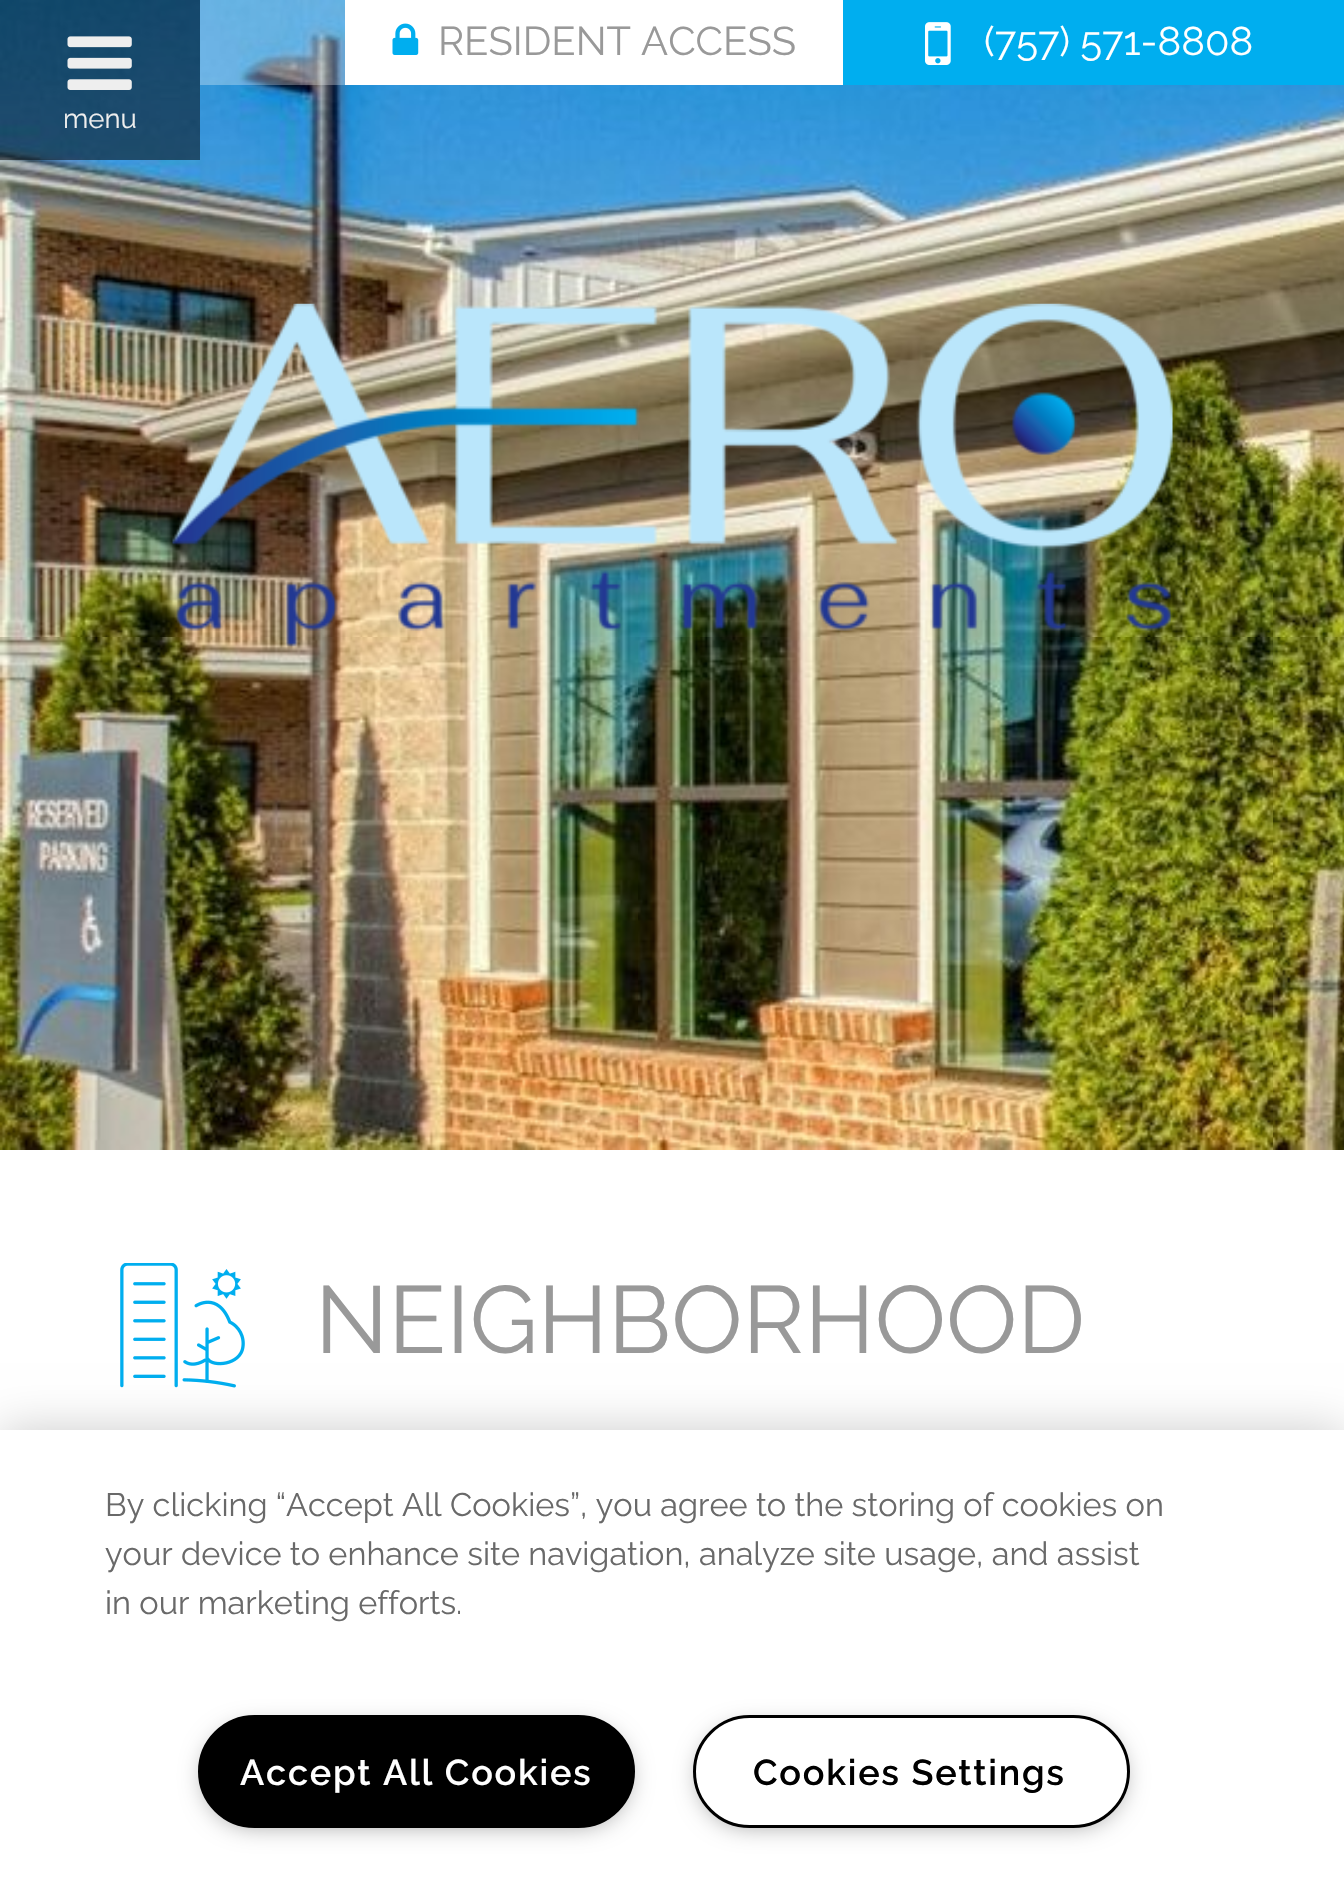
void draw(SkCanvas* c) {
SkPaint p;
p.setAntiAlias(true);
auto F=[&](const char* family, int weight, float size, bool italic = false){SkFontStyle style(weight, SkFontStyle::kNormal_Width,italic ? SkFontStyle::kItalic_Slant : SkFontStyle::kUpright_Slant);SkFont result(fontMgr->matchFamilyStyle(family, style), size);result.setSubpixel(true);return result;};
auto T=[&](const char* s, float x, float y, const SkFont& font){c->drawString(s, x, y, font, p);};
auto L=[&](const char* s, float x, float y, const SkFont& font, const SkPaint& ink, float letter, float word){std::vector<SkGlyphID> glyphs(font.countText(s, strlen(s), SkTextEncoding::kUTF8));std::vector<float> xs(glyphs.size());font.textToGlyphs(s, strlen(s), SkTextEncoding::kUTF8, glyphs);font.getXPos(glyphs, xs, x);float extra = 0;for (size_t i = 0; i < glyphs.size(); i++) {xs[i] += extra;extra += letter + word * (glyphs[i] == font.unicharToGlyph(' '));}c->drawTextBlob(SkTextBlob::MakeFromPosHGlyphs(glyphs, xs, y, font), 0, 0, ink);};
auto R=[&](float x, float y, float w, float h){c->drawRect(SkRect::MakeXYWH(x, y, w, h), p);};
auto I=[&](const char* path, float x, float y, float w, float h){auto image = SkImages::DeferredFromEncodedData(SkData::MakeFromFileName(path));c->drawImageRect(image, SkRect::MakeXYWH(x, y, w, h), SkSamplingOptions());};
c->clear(0xffffffff);
I("1.png",0,0,1344,1150);
I("2.png",172,303,1001,344);
p.setColor(0x4dffffff);
R(200,0,145,85);
p.setColor(0xff00aeef);
R(843,0,501,85);
p.setColor(0xffffffff);
R(345,0,498,85);
I("3.png",392,23,27,32);
auto f1 = F("Raleway",400,40);
p.setColor(0xff999999);
T("RESIDENT ACCESS",438,55,f1);
I("4.png",925,22,26,43);
p.setColor(0xffffffff);
T("(757) 571-8808",984,55,f1);
p.setColor(0x80000000);
R(0,0,200,160);
I("5.png",67,36,65,54);
auto f2 = F("Raleway",400,27.5);
p.setColor(0xffeeeeee);
T("menu",63,128,f2);
I("6.png",120,1263,125,125);
auto f3 = F("Raleway",400,95);
p.setColor(0xff999999);
T("NEIGHBORHOOD",315,1353,f3);
p.setColor(0x33000000);
p.setMaskFilter(SkMaskFilter::MakeBlur(kNormal_SkBlurStyle, 22.5));
c->drawRect(SkRect::MakeXYWH(0,1430,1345,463),p);
p.setMaskFilter(nullptr);
p.setColor(0xffffffff);
R(0,1430,1344,461);
auto f4 = F("Raleway",400,32.5);
p.setColor(0xff696969);
T("By clicking “Accept All Cookies”, you agree to the storing of cookies on",105,1516,f4);
T("your device to enhance site navigation, analyze site usage, and assist",105,1565,f4);
T("in our marketing efforts.",105,1614,f4);
p.setColor(0xff999999);
p.setMaskFilter(SkMaskFilter::MakeBlur(kNormal_SkBlurStyle, 12.5));
c->drawRoundRect(SkRect::MakeXYWH(205,1728,423,97),48.5,48.5,p);
p.setMaskFilter(nullptr);
p.setColor(0xff000000);
c->drawRoundRect(SkRect::MakeXYWH(199.5,1716.5,434,110),55,55,p);
p.setStroke(true);
p.setStrokeWidth(3);
c->drawRoundRect(SkRect::MakeXYWH(199.5,1716.5,434,110),55,55,p);
auto f5 = F("Raleway",600,36);
p.setStroke(false);
p.setColor(0xffffffff);
L("Accept All Cookies",240,1785,f5,p,1.75,0);
p.setColor(0xff999999);
p.setMaskFilter(SkMaskFilter::MakeBlur(kNormal_SkBlurStyle, 12.5));
c->drawRoundRect(SkRect::MakeXYWH(700,1728,423,97),48.5,48.5,p);
p.setMaskFilter(nullptr);
p.setColor(0xffffffff);
c->drawRoundRect(SkRect::MakeXYWH(694.5,1716.5,434,110),55,55,p);
p.setStroke(true);
p.setColor(0xff000000);
c->drawRoundRect(SkRect::MakeXYWH(694.5,1716.5,434,110),55,55,p);
p.setStroke(false);
L("Cookies Settings",753,1785,f5,p,1.75,0);
}
